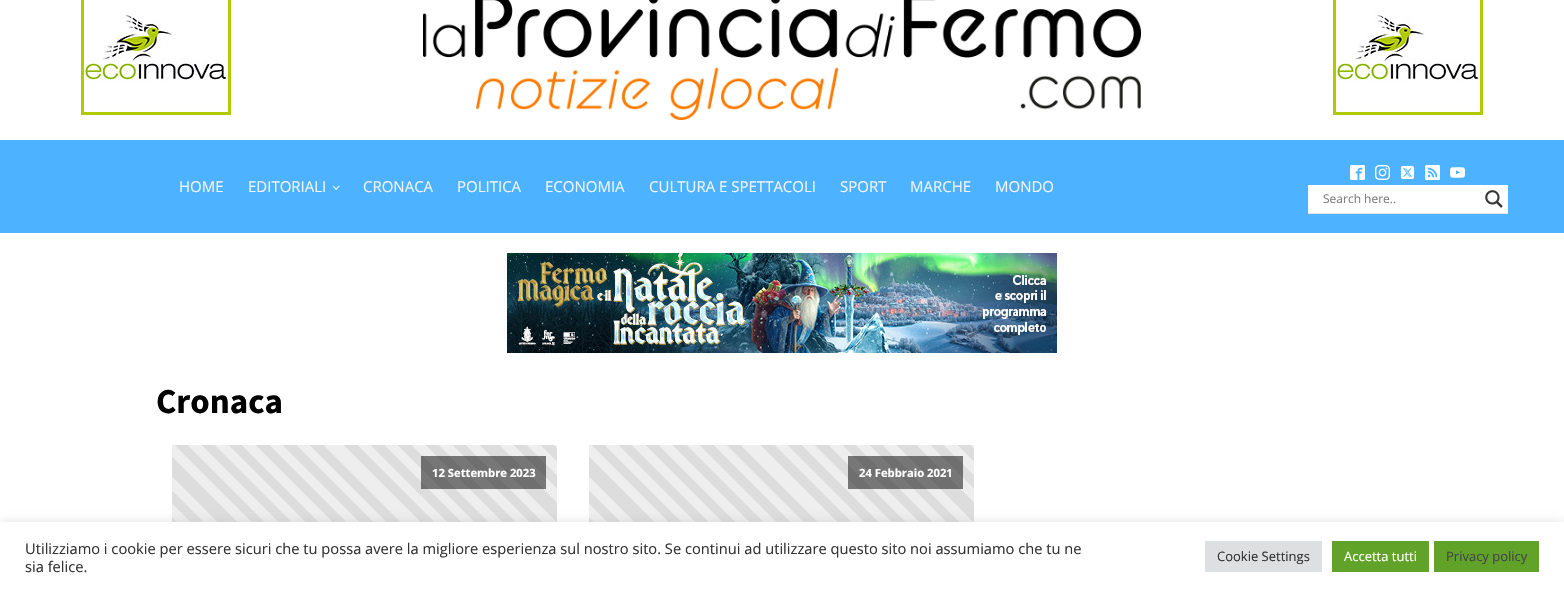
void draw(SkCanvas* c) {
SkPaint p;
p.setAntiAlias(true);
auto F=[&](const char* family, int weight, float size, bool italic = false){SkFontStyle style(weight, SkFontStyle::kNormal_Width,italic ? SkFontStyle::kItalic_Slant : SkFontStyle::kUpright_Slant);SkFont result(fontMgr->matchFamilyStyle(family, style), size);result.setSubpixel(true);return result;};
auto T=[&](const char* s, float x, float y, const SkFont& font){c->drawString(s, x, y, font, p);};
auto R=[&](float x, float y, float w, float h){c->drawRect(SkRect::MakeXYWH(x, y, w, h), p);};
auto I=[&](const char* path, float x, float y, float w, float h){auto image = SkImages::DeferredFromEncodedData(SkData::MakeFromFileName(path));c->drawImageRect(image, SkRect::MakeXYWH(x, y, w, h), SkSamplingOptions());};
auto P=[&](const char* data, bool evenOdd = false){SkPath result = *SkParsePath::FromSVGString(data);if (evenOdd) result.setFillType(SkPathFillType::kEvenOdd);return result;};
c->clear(0xffffffff);
I("1.png",81,0,150,115);
I("2.png",423,0,718,120);
I("1.png",1333,0,150,115);
p.setColor(0xff4db2ff);
R(0,140,1564,93);
auto f1 = F("Open Sans",400,15);
p.setColor(0xffeff4fb);
T("HOME",179,192,f1);
T("EDITORIALI",248,192,f1);
c->drawPath(P("M340 186l-4 4l-.5-1l3.5-3.5z"),p);
c->drawPath(P("M337 189l-1 1l-3.5-4l.5-.5z"),p);
T("CRONACA",363,192,f1);
T("POLITICA",457,192,f1);
T("ECONOMIA",545,192,f1);
T("CULTURA E SPETTACOLI",649,192,f1);
T("SPORT",840,192,f1);
T("MARCHE",910,192,f1);
T("MONDO",995,192,f1);
I("3.png",1350,165,15,15);
I("4.png",1375,165,15,15);
I("5.png",1400,165,15,15);
I("6.png",1425,165,15,15);
I("7.png",1450,167,15,11);
p.setColor(0xffe4e4e4);
R(1308,213,200,1);
p.setColor(0xffffffff);
R(1308,185,200,28);
auto f2 = F("Open Sans",400,12);
p.setColor(0xff7d7d7d);
T("Search here..",1323,203,f2);
I("8.png",1485,190,18,18);
I("9.png",507,253,550,100);
auto f3 = F("Source Sans Pro",700,35);
p.setColor(0xff000000);
T("Cronaca",156,413,f3);
{
const SkColor colors[] = {0xffeeeeee,0xffeeeeee,0xffdddddd,0xffdddddd,0xffeeeeee,0xffeeeeee,0xffdddddd,0xffdddddd,0xffeeeeee,0xffeeeeee,0xffdddddd,0xffdddddd,0xffeeeeee,0xffeeeeee,0xffdddddd,0xffdddddd,0xffeeeeee,0xffeeeeee,0xffdddddd,0xffdddddd,0xffeeeeee,0xffeeeeee,0xffdddddd,0xffdddddd,0xffeeeeee,0xffeeeeee,0xffdddddd,0xffdddddd,0xffeeeeee,0xffeeeeee,0xffdddddd,0xffdddddd,0xffeeeeee,0xffeeeeee,0xffdddddd,0xffdddddd,0xffeeeeee,0xffeeeeee,0xffdddddd,0xffdddddd,0xffeeeeee,0xffeeeeee,0xffdddddd,0xffdddddd,0xffeeeeee,0xffeeeeee,0xffdddddd,0xffdddddd,0xffeeeeee,0xffeeeeee,0xffdddddd,0xffdddddd,0xffeeeeee,0xffeeeeee,0xffdddddd,0xffdddddd,0xffeeeeee,0xffeeeeee,0xffdddddd,0xffdddddd,0xffeeeeee,0xffeeeeee,0xffdddddd,0xffdddddd,0xffeeeeee,0xffeeeeee,0xffdddddd,0xffdddddd,0xffeeeeee,0xffeeeeee,0xffdddddd,0xffdddddd,0xffeeeeee,0xffeeeeee,0xffdddddd,0xffdddddd,0xffeeeeee,0xffeeeeee,0xffdddddd,0xffdddddd,0xffeeeeee,0xffeeeeee,0xffdddddd,0xffdddddd,0xffeeeeee,0xffeeeeee,0xffdddddd,0xffdddddd,0xffeeeeee,0xffeeeeee,0xffdddddd,0xffdddddd,0xffeeeeee,0xffeeeeee,0xffdddddd,0xffdddddd};
const float stops[] = {0,.02,.02,.04,.04,.06,.06,.08,.08,.1,.1,.12,.12,.15,.15,.17,.17,.19,.19,.21,.21,.23,.23,.25,.25,.27,.27,.29,.29,.31,.31,.33,.33,.35,.35,.38,.38,.4,.4,.42,.42,.44,.44,.46,.46,.48,.48,.5,.5,.52,.52,.54,.54,.56,.56,.58,.58,.6,.6,.62,.62,.65,.65,.67,.67,.69,.69,.71,.71,.73,.73,.75,.75,.77,.77,.79,.79,.81,.81,.83,.83,.85,.85,.88,.88,.9,.9,.92,.92,.94,.94,.96,.96,.98,.98,1};
const SkPoint ends[] = {{201,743}, {540,404}};
p.setShader(SkGradientShader::MakeLinear(ends, colors, stops, 96, SkTileMode::kClamp));
p.setAlpha(255);
}
R(172,445,385,77);
{
const SkColor colors[] = {0xff777777,0xff777777,0xff6f6f6f,0xff6f6f6f,0xff777777,0xff777777,0xff6f6f6f,0xff6f6f6f,0xff777777,0xff777777,0xff6f6f6f,0xff6f6f6f,0xff777777,0xff777777,0xff6f6f6f,0xff6f6f6f,0xff777777,0xff777777,0xff6f6f6f,0xff6f6f6f,0xff777777,0xff777777,0xff6f6f6f,0xff6f6f6f,0xff777777,0xff777777,0xff6f6f6f,0xff6f6f6f,0xff777777,0xff777777,0xff6f6f6f,0xff6f6f6f,0xff777777,0xff777777,0xff6f6f6f,0xff6f6f6f,0xff777777,0xff777777,0xff6f6f6f,0xff6f6f6f,0xff777777,0xff777777,0xff6f6f6f,0xff6f6f6f,0xff777777,0xff777777,0xff6f6f6f,0xff6f6f6f,0xff777777,0xff777777,0xff6f6f6f,0xff6f6f6f,0xff777777,0xff777777,0xff6f6f6f,0xff6f6f6f,0xff777777,0xff777777,0xff6f6f6f,0xff6f6f6f,0xff777777,0xff777777,0xff6f6f6f,0xff6f6f6f,0xff777777,0xff777777,0xff6f6f6f,0xff6f6f6f,0xff777777,0xff777777,0xff6f6f6f,0xff6f6f6f,0xff777777,0xff777777,0xff6f6f6f,0xff6f6f6f,0xff777777,0xff777777,0xff6f6f6f,0xff6f6f6f,0xff777777,0xff777777,0xff6f6f6f,0xff6f6f6f,0xff777777,0xff777777,0xff6f6f6f,0xff6f6f6f,0xff777777,0xff777777,0xff6f6f6f,0xff6f6f6f,0xff777777,0xff777777,0xff6f6f6f,0xff6f6f6f};
const float stops[] = {0,.02,.02,.04,.04,.06,.06,.08,.08,.1,.1,.12,.12,.15,.15,.17,.17,.19,.19,.21,.21,.23,.23,.25,.25,.27,.27,.29,.29,.31,.31,.33,.33,.35,.35,.38,.38,.4,.4,.42,.42,.44,.44,.46,.46,.48,.48,.5,.5,.52,.52,.54,.54,.56,.56,.58,.58,.6,.6,.62,.62,.65,.65,.67,.67,.69,.69,.71,.71,.73,.73,.75,.75,.77,.77,.79,.79,.81,.81,.83,.83,.85,.85,.88,.88,.9,.9,.92,.92,.94,.94,.96,.96,.98,.98,1};
const SkPoint ends[] = {{201,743}, {540,404}};
p.setShader(SkGradientShader::MakeLinear(ends, colors, stops, 96, SkTileMode::kClamp));
p.setAlpha(255);
}
R(421,456,125,33);
auto f4 = F("Open Sans",700,11.25);
p.setShader(nullptr);
p.setColor(0xffffffff);
T("12 Settembre 2023",432,477,f4);
{
const SkColor colors[] = {0xffeeeeee,0xffeeeeee,0xffdddddd,0xffdddddd,0xffeeeeee,0xffeeeeee,0xffdddddd,0xffdddddd,0xffeeeeee,0xffeeeeee,0xffdddddd,0xffdddddd,0xffeeeeee,0xffeeeeee,0xffdddddd,0xffdddddd,0xffeeeeee,0xffeeeeee,0xffdddddd,0xffdddddd,0xffeeeeee,0xffeeeeee,0xffdddddd,0xffdddddd,0xffeeeeee,0xffeeeeee,0xffdddddd,0xffdddddd,0xffeeeeee,0xffeeeeee,0xffdddddd,0xffdddddd,0xffeeeeee,0xffeeeeee,0xffdddddd,0xffdddddd,0xffeeeeee,0xffeeeeee,0xffdddddd,0xffdddddd,0xffeeeeee,0xffeeeeee,0xffdddddd,0xffdddddd,0xffeeeeee,0xffeeeeee,0xffdddddd,0xffdddddd,0xffeeeeee,0xffeeeeee,0xffdddddd,0xffdddddd,0xffeeeeee,0xffeeeeee,0xffdddddd,0xffdddddd,0xffeeeeee,0xffeeeeee,0xffdddddd,0xffdddddd,0xffeeeeee,0xffeeeeee,0xffdddddd,0xffdddddd,0xffeeeeee,0xffeeeeee,0xffdddddd,0xffdddddd,0xffeeeeee,0xffeeeeee,0xffdddddd,0xffdddddd,0xffeeeeee,0xffeeeeee,0xffdddddd,0xffdddddd,0xffeeeeee,0xffeeeeee,0xffdddddd,0xffdddddd,0xffeeeeee,0xffeeeeee,0xffdddddd,0xffdddddd,0xffeeeeee,0xffeeeeee,0xffdddddd,0xffdddddd,0xffeeeeee,0xffeeeeee,0xffdddddd,0xffdddddd,0xffeeeeee,0xffeeeeee,0xffdddddd,0xffdddddd};
const float stops[] = {0,.02,.02,.04,.04,.06,.06,.08,.08,.1,.1,.12,.12,.15,.15,.17,.17,.19,.19,.21,.21,.23,.23,.25,.25,.27,.27,.29,.29,.31,.31,.33,.33,.35,.35,.38,.38,.4,.4,.42,.42,.44,.44,.46,.46,.48,.48,.5,.5,.52,.52,.54,.54,.56,.56,.58,.58,.6,.6,.62,.62,.65,.65,.67,.67,.69,.69,.71,.71,.73,.73,.75,.75,.77,.77,.79,.79,.81,.81,.83,.83,.85,.85,.88,.88,.9,.9,.92,.92,.94,.94,.96,.96,.98,.98,1};
const SkPoint ends[] = {{618,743}, {957,404}};
p.setShader(SkGradientShader::MakeLinear(ends, colors, stops, 96, SkTileMode::kClamp));
p.setAlpha(255);
}
R(589,445,385,77);
{
const SkColor colors[] = {0xff777777,0xff777777,0xff6f6f6f,0xff6f6f6f,0xff777777,0xff777777,0xff6f6f6f,0xff6f6f6f,0xff777777,0xff777777,0xff6f6f6f,0xff6f6f6f,0xff777777,0xff777777,0xff6f6f6f,0xff6f6f6f,0xff777777,0xff777777,0xff6f6f6f,0xff6f6f6f,0xff777777,0xff777777,0xff6f6f6f,0xff6f6f6f,0xff777777,0xff777777,0xff6f6f6f,0xff6f6f6f,0xff777777,0xff777777,0xff6f6f6f,0xff6f6f6f,0xff777777,0xff777777,0xff6f6f6f,0xff6f6f6f,0xff777777,0xff777777,0xff6f6f6f,0xff6f6f6f,0xff777777,0xff777777,0xff6f6f6f,0xff6f6f6f,0xff777777,0xff777777,0xff6f6f6f,0xff6f6f6f,0xff777777,0xff777777,0xff6f6f6f,0xff6f6f6f,0xff777777,0xff777777,0xff6f6f6f,0xff6f6f6f,0xff777777,0xff777777,0xff6f6f6f,0xff6f6f6f,0xff777777,0xff777777,0xff6f6f6f,0xff6f6f6f,0xff777777,0xff777777,0xff6f6f6f,0xff6f6f6f,0xff777777,0xff777777,0xff6f6f6f,0xff6f6f6f,0xff777777,0xff777777,0xff6f6f6f,0xff6f6f6f,0xff777777,0xff777777,0xff6f6f6f,0xff6f6f6f,0xff777777,0xff777777,0xff6f6f6f,0xff6f6f6f,0xff777777,0xff777777,0xff6f6f6f,0xff6f6f6f,0xff777777,0xff777777,0xff6f6f6f,0xff6f6f6f,0xff777777,0xff777777,0xff6f6f6f,0xff6f6f6f};
const float stops[] = {0,.02,.02,.04,.04,.06,.06,.08,.08,.1,.1,.12,.12,.15,.15,.17,.17,.19,.19,.21,.21,.23,.23,.25,.25,.27,.27,.29,.29,.31,.31,.33,.33,.35,.35,.38,.38,.4,.4,.42,.42,.44,.44,.46,.46,.48,.48,.5,.5,.52,.52,.54,.54,.56,.56,.58,.58,.6,.6,.62,.62,.65,.65,.67,.67,.69,.69,.71,.71,.73,.73,.75,.75,.77,.77,.79,.79,.81,.81,.83,.83,.85,.85,.88,.88,.9,.9,.92,.92,.94,.94,.96,.96,.98,.98,1};
const SkPoint ends[] = {{618,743}, {957,404}};
p.setShader(SkGradientShader::MakeLinear(ends, colors, stops, 96, SkTileMode::kClamp));
p.setAlpha(255);
}
R(848,456,115,33);
p.setShader(nullptr);
p.setColor(0xffffffff);
T("24 Febbraio 2021",859,477,f4);
p.setColor(0x4dacabab);
p.setMaskFilter(SkMaskFilter::MakeBlur(kNormal_SkBlurStyle, 5));
c->drawRect(SkRect::MakeXYWH(0,521,1564,69),p);
p.setMaskFilter(nullptr);
p.setColor(0xffffffff);
R(0,522,1564,69);
auto f5 = F("Open Sans",400,14.67);
p.setColor(0xff333333);
T("Utilizziamo i cookie per essere sicuri che tu possa avere la migliore esperienza sul nostro sito. Se continui ad utilizzare questo sito noi assumiamo che tu ne",25,554,f5);
T("sia felice.",25,572,f5);
p.setColor(0xffdedfe0);
R(1205,541,117,31);
auto f6 = F("Open Sans",400,13);
p.setColor(0xff333333);
T("Cookie Settings",1217,561,f6);
p.setColor(0xff61a229);
R(1332,541,97,31);
p.setColor(0xffffffff);
T("Accetta tutti",1344,561,f6);
p.setColor(0xff61a229);
R(1434,541,105,31);
p.setColor(0xff444444);
T("Privacy policy",1446,561,f6);
}
